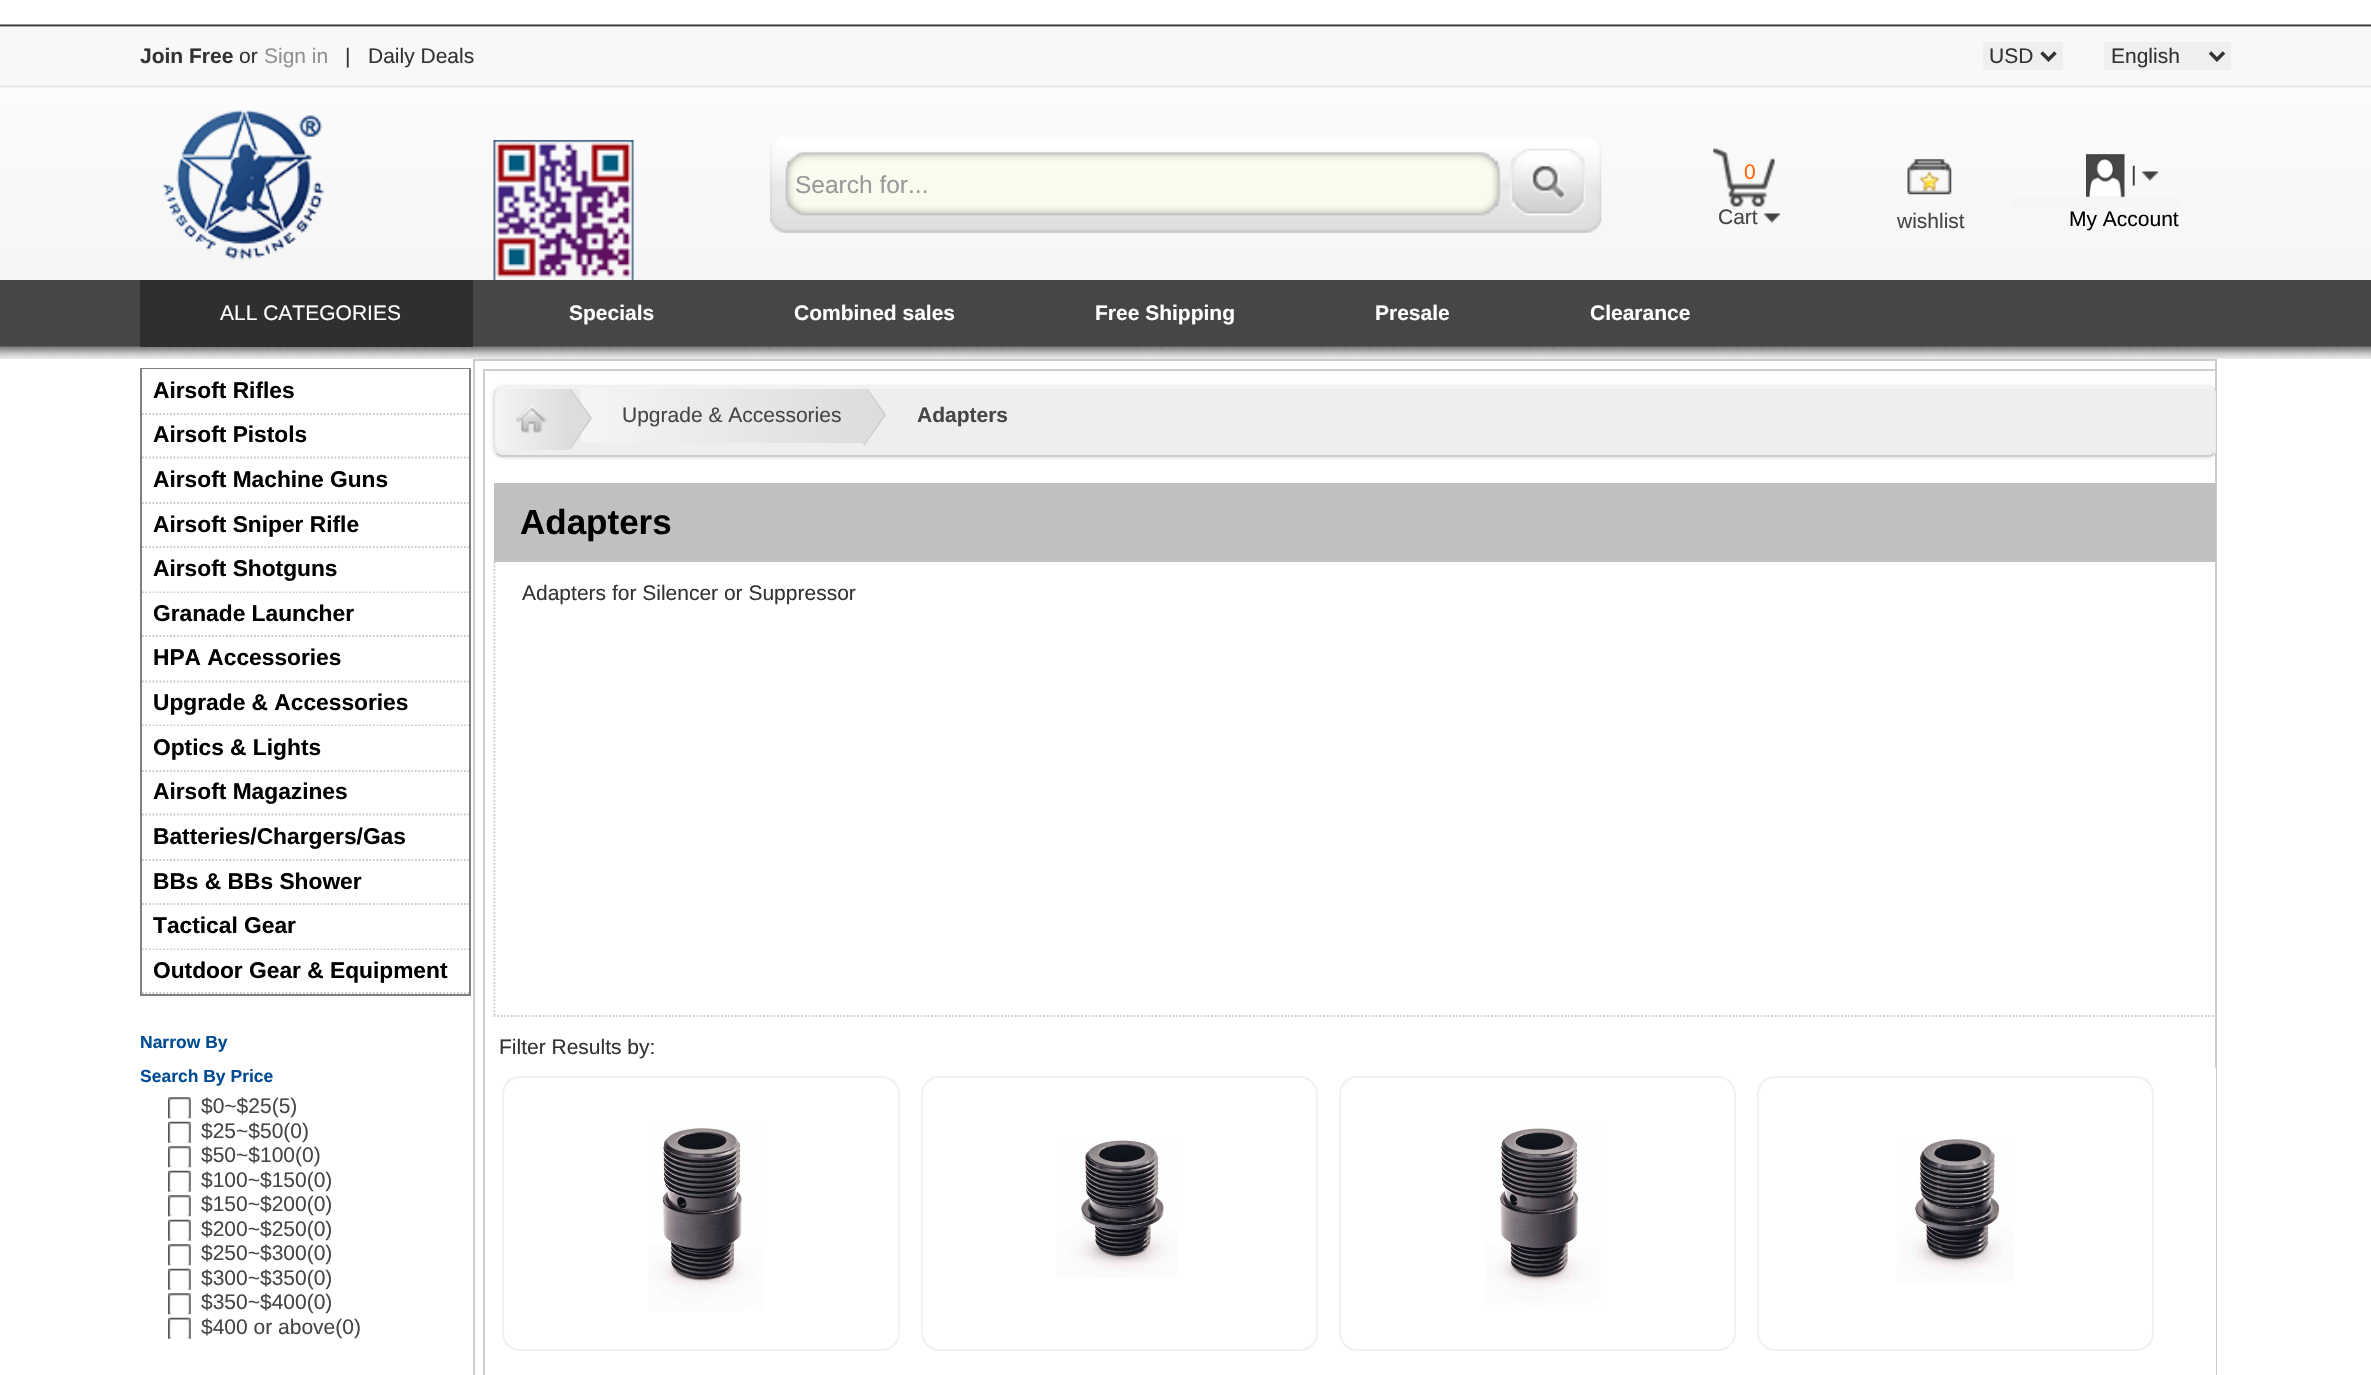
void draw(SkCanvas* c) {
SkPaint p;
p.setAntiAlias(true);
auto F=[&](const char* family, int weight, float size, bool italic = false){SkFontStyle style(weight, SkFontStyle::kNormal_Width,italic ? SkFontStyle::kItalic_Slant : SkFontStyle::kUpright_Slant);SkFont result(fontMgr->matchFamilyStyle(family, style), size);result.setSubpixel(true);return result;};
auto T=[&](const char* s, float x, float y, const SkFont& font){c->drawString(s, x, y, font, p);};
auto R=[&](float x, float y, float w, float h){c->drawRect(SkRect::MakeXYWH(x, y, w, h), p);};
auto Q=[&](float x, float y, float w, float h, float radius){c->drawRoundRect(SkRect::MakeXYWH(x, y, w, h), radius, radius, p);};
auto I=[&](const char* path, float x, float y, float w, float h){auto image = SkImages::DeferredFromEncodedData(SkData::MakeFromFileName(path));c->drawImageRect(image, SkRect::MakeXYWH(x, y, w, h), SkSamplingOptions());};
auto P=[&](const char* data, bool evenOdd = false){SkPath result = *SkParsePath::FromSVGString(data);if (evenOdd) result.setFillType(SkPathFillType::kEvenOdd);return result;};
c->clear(0xffffffff);
I("1.png",0,24,2371,256);
auto f1 = F("Liberation Sans",700,21);
p.setColor(0xff333333);
T("Join Free",140,63,f1);
auto f2 = F("Liberation Sans",400,21);
T("or",239,63,f2);
p.setColor(0xff929292);
T("Sign in",264,63,f2);
p.setColor(0xff333333);
T("|",345,63,f2);
T("Daily Deals",368,63,f2);
p.setColor(0xffefefef);
R(1983,42,80,28);
p.setStroke(true);
p.setStrokeWidth(3.5);
p.setColor(0xff333333);
c->drawPath(P("M2041.5 52.5l7 7l7-7"),p);
p.setStroke(false);
T("USD",1989,63,f2);
p.setColor(0xffefefef);
R(2104,42,127,28);
p.setStroke(true);
p.setColor(0xff333333);
c->drawPath(P("M2210 52.5l7 7l7-7"),p);
p.setStroke(false);
T("English",2111,63,f2);
I("2.png",162,110,163,150);
I("3.png",493,140,141,140);
I("4.png",770,137,832,96);
I("5.png",785,152,716,64);
auto f3 = F("Liberation Sans",400,24.5);
p.setColor(0xff999999);
T("Search for...",795,193,f3);
I("6.png",1510,148,76,68);
I("7.png",1713,148,62,59);
p.setColor(0xffff6600);
T("0",1744,179,f2);
p.setColor(0xff464646);
T("Cart",1718,224,f2);
I("8.png",1764,213,16,10);
I("9.png",1907,159,45,36);
T("wishlist",1897,228,f2);
I("10.png",2086,154,39,44);
p.setColor(0xff333333);
T("|",2131,181,f2);
I("11.png",2142,171,16,10);
p.setColor(0xfff5f5f5);
R(2013,198,166,9);
p.setColor(0xff000000);
T("My Account",2069,226,f2);
I("12.png",0,280,2371,79);
p.setColor(0xff2f2f2f);
R(140,280,333,67);
p.setColor(0xffffffff);
T("ALL CATEGORIES",220,320,f2);
T("Specials",569,320,f1);
T("Combined sales",794,320,f1);
T("Free Shipping",1095,320,f1);
T("Presale",1375,320,f1);
T("Clearance",1590,320,f1);
p.setStroke(true);
p.setStrokeWidth(2);
p.setColor(0xff808080);
c->drawRect(SkRect::MakeXYWH(141,369,329,626),p);
p.setStroke(false);
p.setColor(0xffffffff);
R(142,369,327,1);
p.setStroke(true);
p.setStrokeWidth(1.8);
p.setColor(0xffcccccc);
p.setPathEffect(SkDashPathEffect::Make({{1.75f,1.75f}}, 0));
c->drawPath(P("M142 414h327"),p);
p.setPathEffect(nullptr);
auto f4 = F("Liberation Sans",700,22.75);
p.setStroke(false);
p.setColor(0xff000000);
T("Airsoft Rifles",153,398,f4);
p.setStroke(true);
p.setColor(0xffcccccc);
p.setPathEffect(SkDashPathEffect::Make({{1.75f,1.75f}}, 0));
c->drawPath(P("M142 457.5h327"),p);
p.setPathEffect(nullptr);
p.setStroke(false);
p.setColor(0xff000000);
T("Airsoft Pistols",153,442,f4);
p.setStroke(true);
p.setColor(0xffcccccc);
p.setPathEffect(SkDashPathEffect::Make({{1.75f,1.75f}}, 0));
c->drawPath(P("M142 503h327"),p);
p.setPathEffect(nullptr);
p.setStroke(false);
p.setColor(0xff000000);
T("Airsoft Machine Guns",153,487,f4);
p.setStroke(true);
p.setColor(0xffcccccc);
p.setPathEffect(SkDashPathEffect::Make({{1.75f,1.75f}}, 0));
c->drawPath(P("M142 547h327"),p);
p.setPathEffect(nullptr);
p.setStroke(false);
p.setColor(0xff000000);
T("Airsoft Sniper Rifle",153,532,f4);
p.setStroke(true);
p.setColor(0xffcccccc);
p.setPathEffect(SkDashPathEffect::Make({{1.75f,1.75f}}, 0));
c->drawPath(P("M142 592.5h327"),p);
p.setPathEffect(nullptr);
p.setStroke(false);
p.setColor(0xff000000);
T("Airsoft Shotguns",153,576,f4);
p.setColor(0xffffffff);
R(142,593,327,1);
p.setStroke(true);
p.setColor(0xffcccccc);
p.setPathEffect(SkDashPathEffect::Make({{1.75f,1.75f}}, 0));
c->drawPath(P("M142 636h327"),p);
p.setPathEffect(nullptr);
p.setStroke(false);
p.setColor(0xff000000);
T("Granade Launcher",153,621,f4);
p.setStroke(true);
p.setColor(0xffcccccc);
p.setPathEffect(SkDashPathEffect::Make({{1.75f,1.75f}}, 0));
c->drawPath(P("M142 681.5h327"),p);
p.setPathEffect(nullptr);
p.setStroke(false);
p.setColor(0xff000000);
T("HPA Accessories",153,665,f4);
p.setStroke(true);
p.setColor(0xffcccccc);
p.setPathEffect(SkDashPathEffect::Make({{1.75f,1.75f}}, 0));
c->drawPath(P("M142 725.5h327"),p);
p.setPathEffect(nullptr);
p.setStroke(false);
p.setColor(0xff000000);
T("Upgrade & Accessories",153,710,f4);
p.setColor(0xffffffff);
R(142,726,327,1);
p.setStroke(true);
p.setColor(0xffcccccc);
p.setPathEffect(SkDashPathEffect::Make({{1.75f,1.75f}}, 0));
c->drawPath(P("M142 771h327"),p);
p.setPathEffect(nullptr);
p.setStroke(false);
p.setColor(0xff000000);
T("Optics & Lights",153,755,f4);
p.setStroke(true);
p.setColor(0xffcccccc);
p.setPathEffect(SkDashPathEffect::Make({{1.75f,1.75f}}, 0));
c->drawPath(P("M142 814.5h327"),p);
p.setPathEffect(nullptr);
p.setStroke(false);
p.setColor(0xff000000);
T("Airsoft Magazines",153,799,f4);
p.setStroke(true);
p.setColor(0xffcccccc);
p.setPathEffect(SkDashPathEffect::Make({{1.75f,1.75f}}, 0));
c->drawPath(P("M142 860h327"),p);
p.setPathEffect(nullptr);
p.setStroke(false);
p.setColor(0xff000000);
T("Batteries/Chargers/Gas",153,844,f4);
p.setStroke(true);
p.setColor(0xffcccccc);
p.setPathEffect(SkDashPathEffect::Make({{1.75f,1.75f}}, 0));
c->drawPath(P("M142 904h327"),p);
p.setPathEffect(nullptr);
p.setStroke(false);
p.setColor(0xff000000);
T("BBs & BBs Shower",153,889,f4);
p.setStroke(true);
p.setColor(0xffcccccc);
p.setPathEffect(SkDashPathEffect::Make({{1.75f,1.75f}}, 0));
c->drawPath(P("M142 949.5h327"),p);
p.setPathEffect(nullptr);
p.setStroke(false);
p.setColor(0xff000000);
T("Tactical Gear",153,933,f4);
p.setColor(0xffffffff);
R(142,950,327,1);
p.setStroke(true);
p.setColor(0xffcccccc);
p.setPathEffect(SkDashPathEffect::Make({{1.75f,1.75f}}, 0));
c->drawPath(P("M142 993h327"),p);
p.setPathEffect(nullptr);
p.setStroke(false);
p.setColor(0xff000000);
T("Outdoor Gear & Equipment",153,978,f4);
auto f5 = F("Liberation Sans",700,17.5);
p.setColor(0xff004b91);
T("Narrow By",140,1048,f5);
T("Search By Price",140,1082,f5);
I("13.png",168,1097,23,22);
p.setColor(0xff464646);
T("$0~$25(5)",201,1113,f2);
I("14.png",168,1121,23,22);
T("$25~$50(0)",201,1138,f2);
I("13.png",168,1146,23,22);
T("$50~$100(0)",201,1162,f2);
I("14.png",168,1170,23,22);
T("$100~$150(0)",201,1187,f2);
I("13.png",168,1195,23,22);
T("$150~$200(0)",201,1211,f2);
I("14.png",168,1219,23,22);
T("$200~$250(0)",201,1236,f2);
I("13.png",168,1244,23,22);
T("$250~$300(0)",201,1260,f2);
I("14.png",168,1268,23,22);
T("$300~$350(0)",201,1285,f2);
I("13.png",168,1293,23,22);
T("$350~$400(0)",201,1309,f2);
I("14.png",168,1317,23,22);
T("$400 or above(0)",201,1334,f2);
p.setStroke(true);
p.setStrokeWidth(2);
p.setColor(0xffcccccc);
c->drawRect(SkRect::MakeXYWH(474,360,1742,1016),p);
c->save();
c->clipRect(SkRect::MakeXYWH(474,361,1742,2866));
c->drawRect(SkRect::MakeXYWH(484,370,1743,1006),p);
c->restore();
c->save();
c->clipRect(SkRect::MakeXYWH(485,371,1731,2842));
p.setStroke(false);
p.setColor(0x33000000);
p.setMaskFilter(SkMaskFilter::MakeBlur(kNormal_SkBlurStyle, 2));
c->drawRoundRect(SkRect::MakeXYWH(494,387,1723,70),9,9,p);
p.setMaskFilter(nullptr);
c->restore();
c->save();
c->clipRect(SkRect::MakeXYWH(474,361,1742,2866));
p.setColor(0xffeeeeee);
Q(494,387,1723,70,9);
c->restore();
p.setStroke(true);
p.setStrokeWidth(1.8);
p.setColor(0xfff5f5f5);
c->drawPath(P("M496.5 390c1.5-1.5 3.5-2.5 5.5-2.5h1706.5c2 0 4 1 5.5 2.5"),p);
c->save();
c->clipRect(SkRect::MakeXYWH(485,371,1731,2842));
p.setColor(0xffe5e5e5);
c->drawPath(P("M2214 390c1.5 1.5 2.5 3.5 2.5 5.5v52.5c0 2-1 4-2.5 5.5"),p);
c->restore();
p.setColor(0xffcccccc);
c->drawPath(P("M2214 453.5c-1.5 1.5-3.5 2.5-5.5 2.5h-1706.5c-2 0-4-1-5.5-2.5"),p);
p.setColor(0xffe5e5e5);
c->drawPath(P("M496.5 453.5c-1.5-1.5-2-3.5-2-5.5v-52.5c0-2 .5-4 2-5.5"),p);
p.setStroke(false);
{
const SkColor colors[] = {0xfff5f5f5,0xffdddddd};
const float stops[] = {0,1};
const SkPoint ends[] = {{495,419}, {569,419}};
p.setShader(SkGradientShader::MakeLinear(ends, colors, stops, 2, SkTileMode::kClamp));
p.setAlpha(255);
}
c->drawPath(P("M504 389h65v61h-65c-5 0-9-4-9-9v-43c0-5 4-9 9-9z"),p);
{
const SkColor colors[] = {0xfff5f5f5,0xffdddddd};
const float stops[] = {0,1};
const SkPoint ends[] = {{581,416}, {863,416}};
p.setShader(SkGradientShader::MakeLinear(ends, colors, stops, 2, SkTileMode::kClamp));
p.setAlpha(255);
}
R(581,389,282,54);
p.setShader(nullptr);
p.setColor(0xffcccccc);
c->drawPath(P("M570 450l22-32l-21-29h-1z"),p);
p.setColor(0xffdddddd);
c->drawPath(P("M569 450l21-32l-20-29h-1z"),p);
I("15.png",516,405,31,28);
p.setColor(0xffcccccc);
c->drawPath(P("M864 446l22-31l-18-26h-4z"),p);
p.setColor(0xffdddddd);
c->drawPath(P("M863 446l21-31l-17-26h-4z"),p);
p.setColor(0xff464646);
T("Upgrade & Accessories",622,422,f2);
T("Adapters",917,422,f1);
p.setColor(0xffc0c0c0);
R(494,483,1722,79);
auto f6 = F("Liberation Sans",700,35);
p.setColor(0xff000000);
T("Adapters",520,534,f6);
p.setStroke(true);
p.setColor(0xffcccccc);
p.setPathEffect(SkDashPathEffect::Make({{1.75f,1.75f}}, 0));
c->drawPath(P("M493.5 1016h1723.5"),p);
p.setPathEffect(nullptr);
p.setPathEffect(SkDashPathEffect::Make({{1.75f,1.75f}}, 0));
c->drawPath(P("M494.5 562v455"),p);
p.setPathEffect(nullptr);
p.setStroke(false);
p.setColor(0xff333333);
T("Adapters for Silencer or Suppressor",522,600,f2);
T("Filter Results by:",499,1054,f2);
p.setColor(0xffffffff);
R(2215,1068,1,307);
p.setStroke(true);
p.setStrokeWidth(2);
p.setColor(0xfff1f1f1);
c->drawRoundRect(SkRect::MakeXYWH(503,1077,396,273),17,17,p);
I("16.png",648,1127,115,185);
c->drawRoundRect(SkRect::MakeXYWH(922,1077,395,273),17,17,p);
I("17.png",1056,1140,122,138);
c->drawRoundRect(SkRect::MakeXYWH(1340,1077,395,273),17,17,p);
I("18.png",1485,1127,116,178);
c->drawRoundRect(SkRect::MakeXYWH(1758,1077,395,273),17,17,p);
I("19.png",1897,1139,117,143);
}
